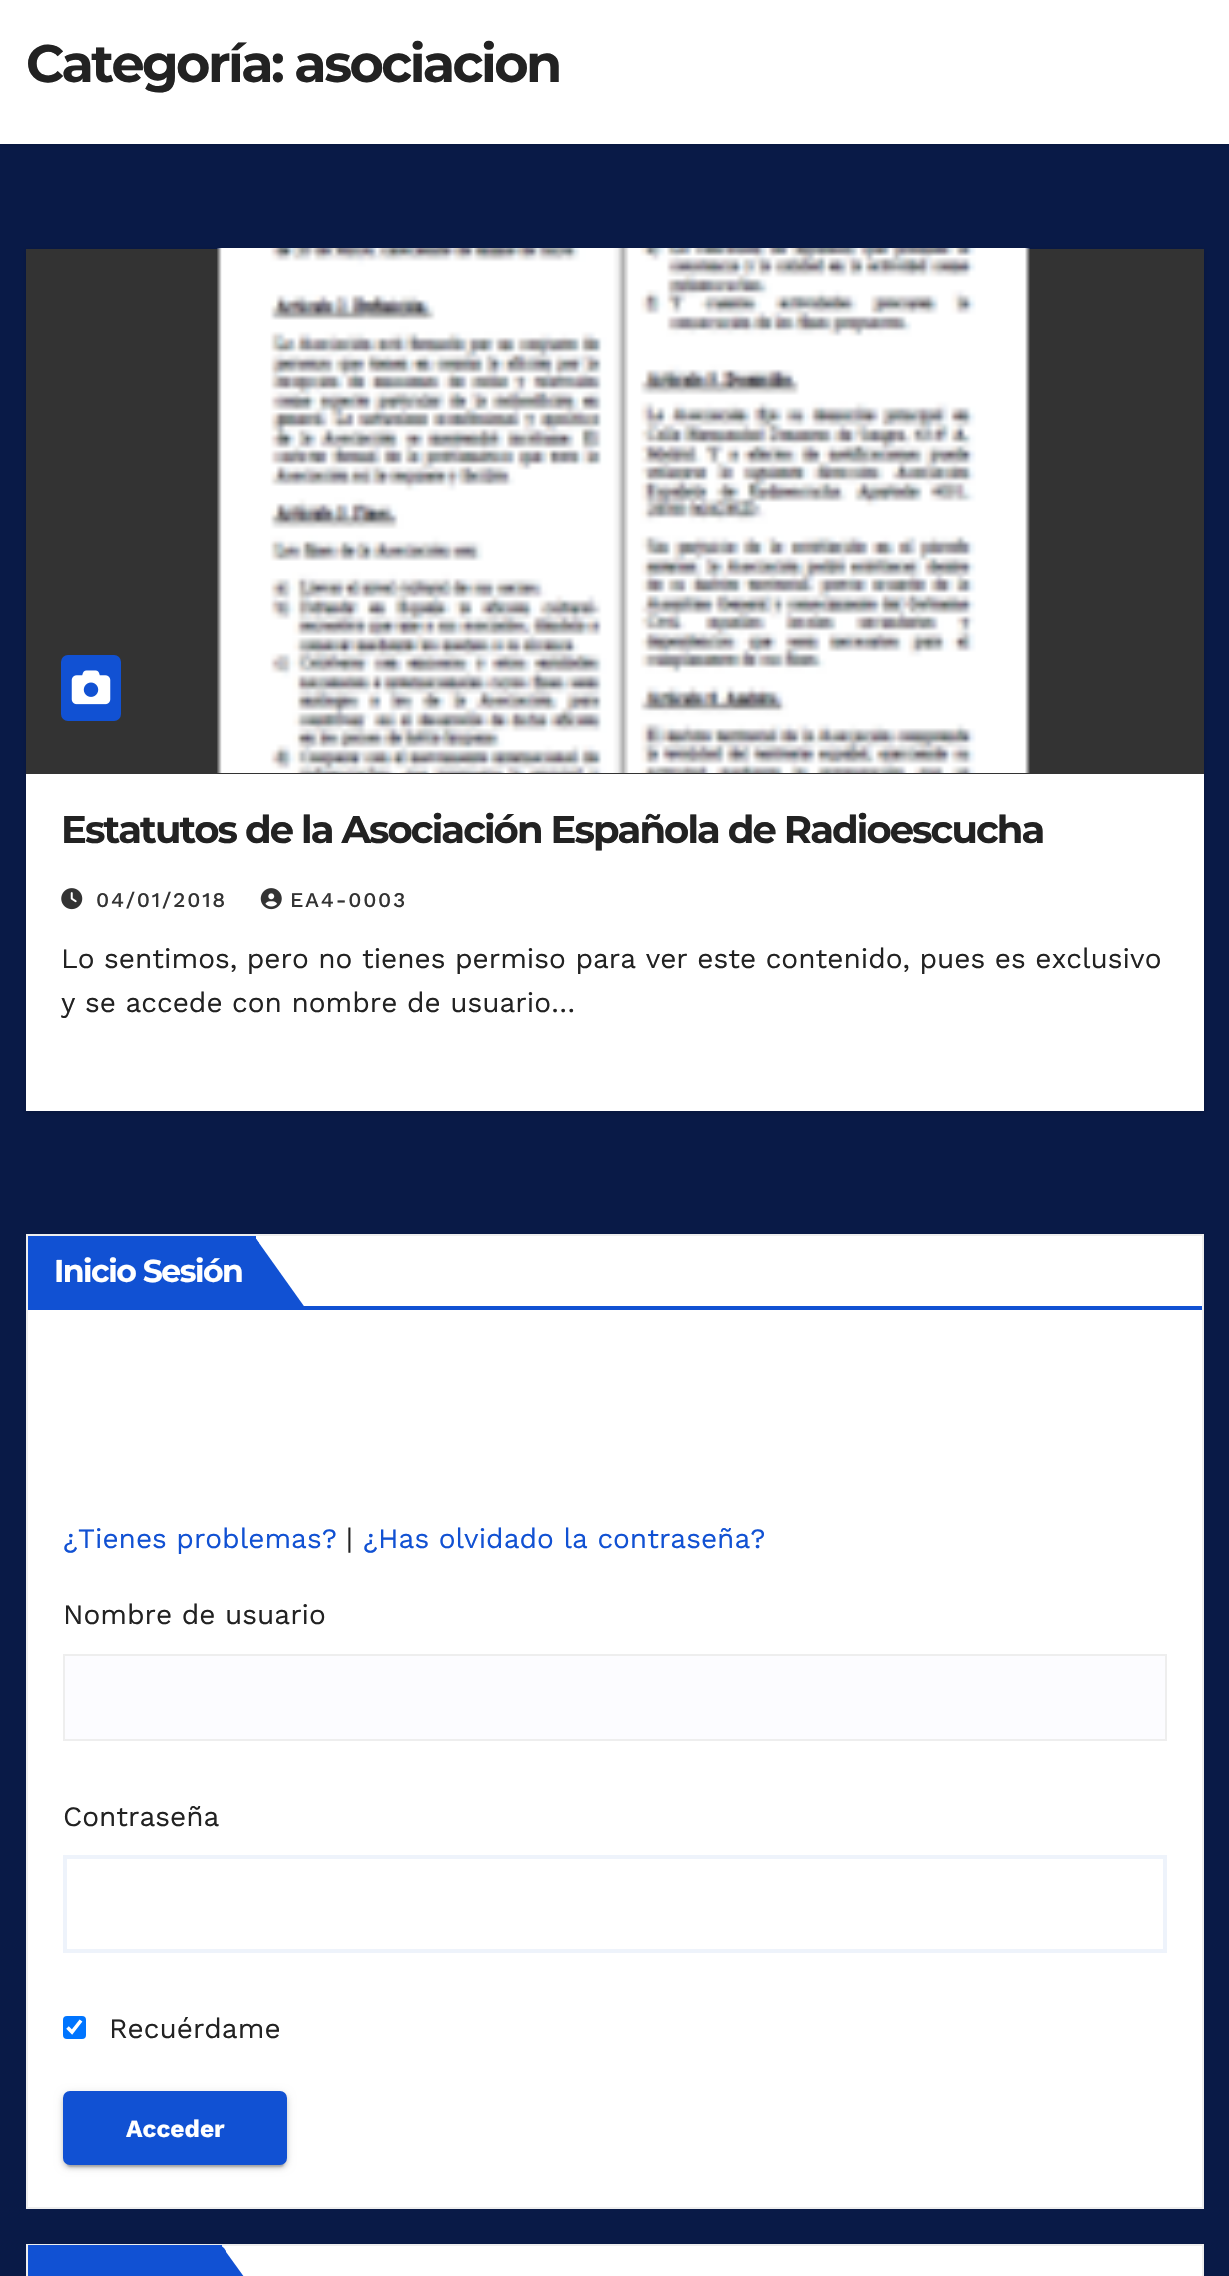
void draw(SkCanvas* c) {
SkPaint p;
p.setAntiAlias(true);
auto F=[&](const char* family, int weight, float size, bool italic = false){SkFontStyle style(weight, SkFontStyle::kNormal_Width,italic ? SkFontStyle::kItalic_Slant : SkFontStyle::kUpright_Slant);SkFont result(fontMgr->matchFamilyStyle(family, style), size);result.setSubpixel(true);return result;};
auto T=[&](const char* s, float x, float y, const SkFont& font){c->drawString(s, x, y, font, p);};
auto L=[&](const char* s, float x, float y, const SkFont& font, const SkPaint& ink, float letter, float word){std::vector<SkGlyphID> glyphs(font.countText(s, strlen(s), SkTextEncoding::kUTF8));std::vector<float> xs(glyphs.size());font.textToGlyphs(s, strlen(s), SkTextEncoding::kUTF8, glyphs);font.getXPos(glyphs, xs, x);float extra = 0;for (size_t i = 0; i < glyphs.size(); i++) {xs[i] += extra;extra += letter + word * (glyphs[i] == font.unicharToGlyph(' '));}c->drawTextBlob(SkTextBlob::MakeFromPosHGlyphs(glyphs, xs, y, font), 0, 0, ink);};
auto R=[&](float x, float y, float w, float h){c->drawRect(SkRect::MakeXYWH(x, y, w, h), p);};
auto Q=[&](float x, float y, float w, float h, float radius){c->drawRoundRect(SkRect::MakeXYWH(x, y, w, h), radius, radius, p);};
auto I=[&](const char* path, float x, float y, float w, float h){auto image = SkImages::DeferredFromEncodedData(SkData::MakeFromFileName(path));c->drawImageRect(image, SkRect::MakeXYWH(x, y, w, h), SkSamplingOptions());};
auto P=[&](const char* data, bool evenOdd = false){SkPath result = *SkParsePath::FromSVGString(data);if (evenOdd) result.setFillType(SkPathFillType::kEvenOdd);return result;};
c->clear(0xff091a47);
p.setColor(0x26000000);
p.setMaskFilter(SkMaskFilter::MakeBlur(kNormal_SkBlurStyle, 2.5));
c->drawRect(SkRect::MakeXYWH(0,-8,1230,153),p);
p.setMaskFilter(nullptr);
p.setColor(0xffffffff);
R(0,0,1229,144);
auto f1 = F("Montserrat",700,52.5);
p.setColor(0xff222222);
L("Categoría: asociacion",26,82,f1,p,-2.6,0);
p.setColor(0x26000000);
p.setMaskFilter(SkMaskFilter::MakeBlur(kNormal_SkBlurStyle, 2.5));
c->drawRect(SkRect::MakeXYWH(26,250,1178,863),p);
p.setMaskFilter(nullptr);
p.setColor(0xffffffff);
R(26,774,1178,337);
p.setColor(0xff333333);
R(26,249,1178,525);
I("1.png",217,248,813,525);
p.setColor(0xff1151d3);
Q(61,655,60,66,7);
I("2.png",71,670,40,35);
auto f2 = F("Montserrat",700,38.5);
p.setColor(0xff222222);
L("Estatutos de la Asociación Española de Radioescucha",61,843,f2,p,-1.93,0);
I("3.png",61,888,22,22);
auto f3 = F("Work Sans",500,21);
p.setColor(0xff333333);
L("04/01/2018",96,907,f3,p,1.75,0);
I("4.png",260,888,22,22);
L("EA4-0003",290,907,f3,p,1.75,0);
auto f4 = F("Work Sans",400,28);
p.setColor(0xff222222);
T("Lo sentimos, pero no tienes permiso para ver este contenido, pues es exclusivo",61,968,f4);
T("y se accede con nombre de usuario…",61,1012,f4);
p.setColor(0xffffffff);
c->drawRect(SkRect::MakeXYWH(27,1235,1176,973),p);
p.setStroke(true);
p.setStrokeWidth(2);
p.setColor(0xffeeeeee);
c->drawRect(SkRect::MakeXYWH(27,1235,1176,973),p);
p.setStroke(false);
p.setColor(0xff1151d3);
R(28,1306,1174,4);
R(28,1236,228,70);
auto f5 = F("Montserrat",700,31.5);
p.setColor(0xffffffff);
L("Inicio Sesión",54,1282,f5,p,-1.5,0);
p.setColor(0xff1151d3);
c->drawPath(P("M306 1309h-52v-73z"),p);
c->drawPath(P("M254 1309l5-5v-61l-5-7z"),p);
T("¿Tienes problemas?",63,1548,f4);
p.setColor(0xff222222);
T("|",346,1548,f4);
p.setColor(0xff1151d3);
T("¿Has olvidado la contraseña?",363,1548,f4);
p.setColor(0xff222222);
T("Nombre de usuario",63,1624,f4);
p.setColor(0xfffcfcff);
c->drawRect(SkRect::MakeXYWH(64,1655,1102,85),p);
p.setStroke(true);
p.setColor(0xffeeeeee);
c->drawRect(SkRect::MakeXYWH(64,1655,1102,85),p);
p.setStroke(false);
p.setColor(0xff222222);
T("Contraseña",63,1826,f4);
p.setStroke(true);
p.setStrokeWidth(4);
p.setColor(0xffeef3fb);
c->drawRect(SkRect::MakeXYWH(65,1857,1100,94),p);
p.setStroke(false);
p.setColor(0xff0075ff);
Q(63,2016,23,23,4);
p.setStroke(true);
p.setStrokeWidth(3.6);
p.setColor(0xffffffff);
c->drawPath(P("M67.5 2027.5l4.5 4.5l9-11.5"),p);
p.setStroke(false);
p.setColor(0xff222222);
T("Recuérdame",109,2038,f4);
p.setColor(0x1f000000);
p.setMaskFilter(SkMaskFilter::MakeBlur(kNormal_SkBlurStyle, 4.5));
c->drawRoundRect(SkRect::MakeXYWH(63,2093,224,74),7,7,p);
p.setMaskFilter(nullptr);
p.setColor(0x33000000);
p.setMaskFilter(SkMaskFilter::MakeBlur(kNormal_SkBlurStyle, 1));
c->drawRoundRect(SkRect::MakeXYWH(67,2100,217,67),4,4,p);
p.setMaskFilter(nullptr);
p.setColor(0x24000000);
p.setMaskFilter(SkMaskFilter::MakeBlur(kNormal_SkBlurStyle, 2));
c->drawRoundRect(SkRect::MakeXYWH(63,2095,224,73),7,7,p);
p.setMaskFilter(nullptr);
p.setColor(0xff1151d3);
c->drawRoundRect(SkRect::MakeXYWH(64,2092,222,72),6,6,p);
p.setStroke(true);
p.setStrokeWidth(2);
c->drawRoundRect(SkRect::MakeXYWH(64,2092,222,72),6,6,p);
auto f6 = F("Work Sans",700,24.5);
p.setStroke(false);
p.setColor(0xffffffff);
T("Acceder",126,2137,f6);
R(222,2246,980,30);
p.setStroke(true);
p.setColor(0xffeeeeee);
c->drawRect(SkRect::MakeXYWH(27,2245,1176,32),p);
p.setStroke(false);
p.setColor(0xff1151d3);
R(28,2245,194,31);
c->drawPath(P("M221 2245v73h52v-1z"),p);
c->drawPath(P("M224 2248l-3-2v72l5-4v-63z"),p);
}
